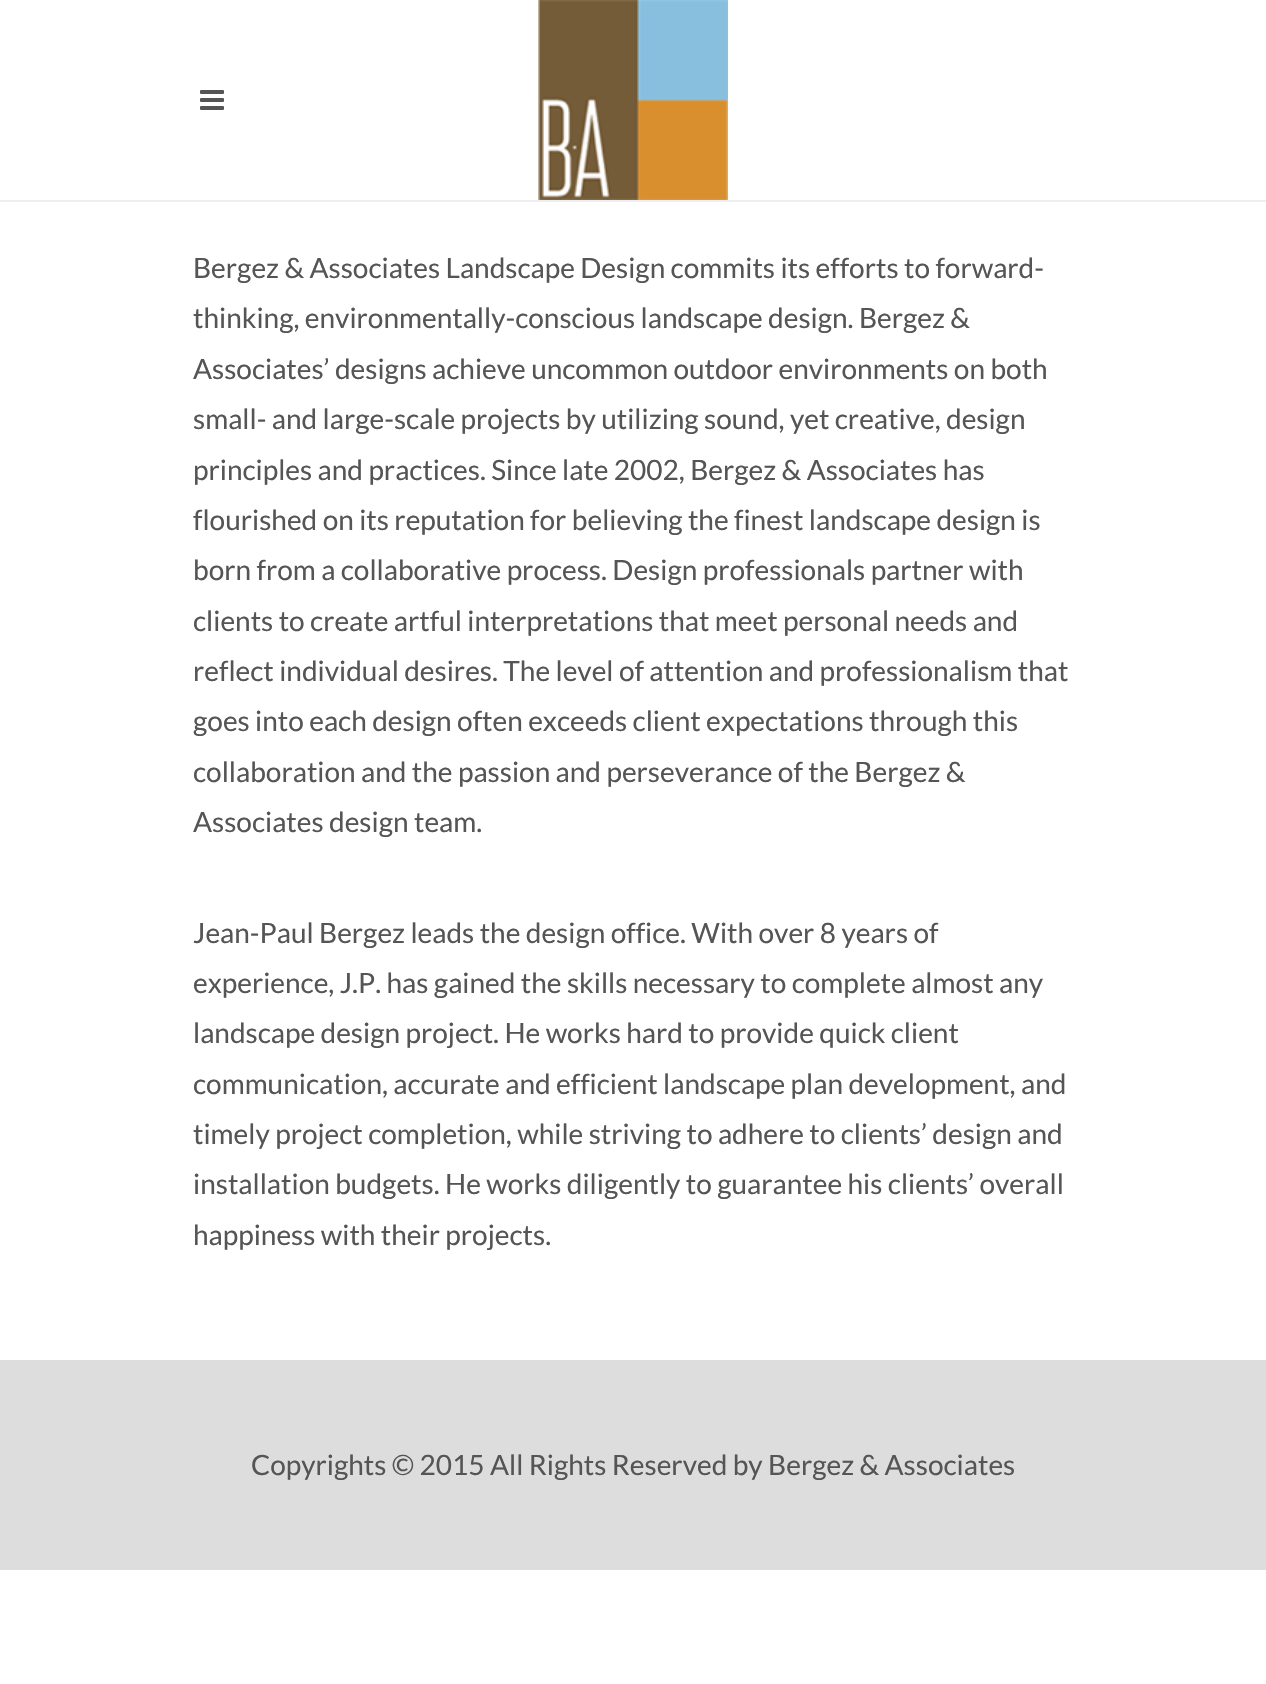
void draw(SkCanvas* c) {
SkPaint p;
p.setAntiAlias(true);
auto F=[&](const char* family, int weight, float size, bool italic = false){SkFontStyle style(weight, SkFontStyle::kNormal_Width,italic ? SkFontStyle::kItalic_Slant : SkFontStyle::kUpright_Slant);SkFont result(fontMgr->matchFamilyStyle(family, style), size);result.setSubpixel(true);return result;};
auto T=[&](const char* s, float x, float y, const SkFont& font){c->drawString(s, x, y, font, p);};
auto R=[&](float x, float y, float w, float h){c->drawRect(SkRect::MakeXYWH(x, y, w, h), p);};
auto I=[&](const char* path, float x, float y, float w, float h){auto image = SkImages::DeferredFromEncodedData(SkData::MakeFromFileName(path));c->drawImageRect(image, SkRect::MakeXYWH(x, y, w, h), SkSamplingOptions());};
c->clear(0xffffffff);
p.setColor(0xffeeeeee);
R(0,200,1266,2);
I("1.png",200,90,24,20);
I("2.png",538,0,190,200);
auto f1 = F("Lato",400,28);
p.setColor(0xff555555);
T("Bergez & Associates Landscape Design commits its efforts to forward-",193,278,f1);
T("thinking, environmentally-conscious landscape design. Bergez &",193,328,f1);
T("Associates’ designs achieve uncommon outdoor environments on both",193,379,f1);
T("small- and large-scale projects by utilizing sound, yet creative, design",193,429,f1);
T("principles and practices. Since late 2002, Bergez & Associates has",193,480,f1);
T("flourished on its reputation for believing the finest landscape design is",193,530,f1);
T("born from a collaborative process. Design professionals partner with",193,580,f1);
T("clients to create artful interpretations that meet personal needs and",193,631,f1);
T("reflect individual desires. The level of attention and professionalism that",193,681,f1);
T("goes into each design often exceeds client expectations through this",193,731,f1);
T("collaboration and the passion and perseverance of the Bergez &",193,782,f1);
T("Associates design team.",193,832,f1);
T("Jean-Paul Bergez leads the design office. With over 8 years of",193,943,f1);
T("experience, J.P. has gained the skills necessary to complete almost any",193,993,f1);
T("landscape design project. He works hard to provide quick client",193,1043,f1);
T("communication, accurate and efficient landscape plan development, and",193,1094,f1);
T("timely project completion, while striving to adhere to clients’ design and",193,1144,f1);
T("installation budgets. He works diligently to guarantee his clients’ overall",193,1194,f1);
T("happiness with their projects.",193,1245,f1);
p.setColor(0xffdddddd);
R(0,1360,1266,210);
p.setColor(0xff555555);
T("Copyrights © 2015 All Rights Reserved by Bergez & Associates",251,1475,f1);
}
